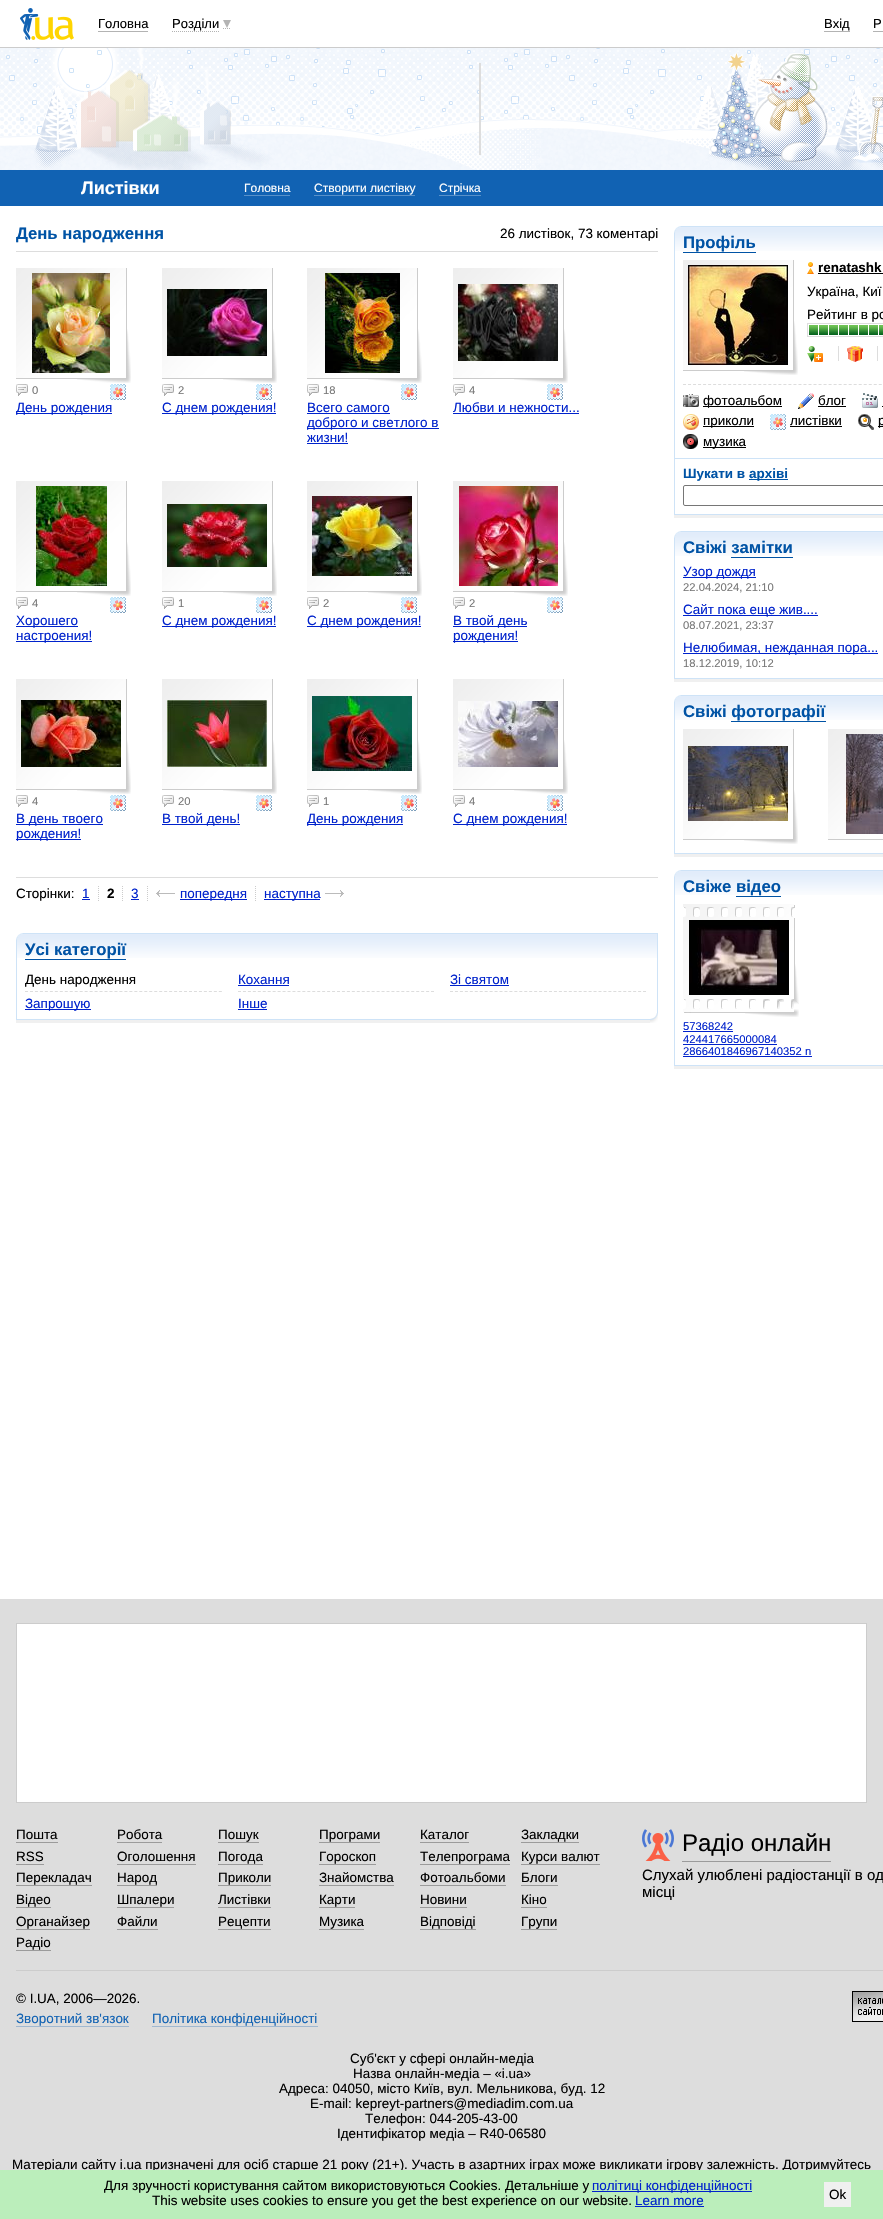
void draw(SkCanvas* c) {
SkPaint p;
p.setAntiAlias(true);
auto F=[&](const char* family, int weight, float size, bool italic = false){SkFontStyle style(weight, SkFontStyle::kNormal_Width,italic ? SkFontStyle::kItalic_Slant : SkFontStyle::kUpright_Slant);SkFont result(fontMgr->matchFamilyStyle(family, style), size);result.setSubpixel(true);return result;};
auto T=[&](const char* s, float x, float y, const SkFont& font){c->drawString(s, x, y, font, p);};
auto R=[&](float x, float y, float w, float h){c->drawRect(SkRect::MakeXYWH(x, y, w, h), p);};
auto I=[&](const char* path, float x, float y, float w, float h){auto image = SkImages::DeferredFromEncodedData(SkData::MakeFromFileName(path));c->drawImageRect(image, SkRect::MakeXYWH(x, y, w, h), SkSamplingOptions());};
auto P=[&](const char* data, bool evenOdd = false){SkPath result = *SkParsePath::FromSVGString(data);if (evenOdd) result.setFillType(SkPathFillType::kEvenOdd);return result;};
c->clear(0xffffffff);
p.setColor(0xffcccccc);
R(0,47,883,1);
I("1.png",20,8,54,32);
auto f1 = F("Liberation Sans",400,13);
p.setColor(0xff000000);
T("Головна",98,28,f1);
p.setColor(0xffb3b3b3);
R(98,31,50,1);
p.setStroke(true);
p.setStrokeWidth(1);
p.setPathEffect(SkDashPathEffect::Make({{1,1}}, 0));
c->drawPath(P("M172 31.5h47m4-3h8"),p);
p.setPathEffect(nullptr);
p.setStroke(false);
p.setColor(0xff000000);
T("Розділи",172,28,f1);
p.setColor(0xffb3b3b3);
c->drawPath(P("M223 20h8l-4 8z"),p);
p.setColor(0xff000000);
T("Вхід",824,28,f1);
p.setColor(0xffb3b3b3);
R(824,31,26,1);
p.setColor(0xff000000);
T("Р",873,28,f1);
p.setColor(0xffb3b3b3);
R(873,31,10,1);
I("2.png",0,48,883,122);
p.setColor(0xffdddddd);
R(479,63,2,92);
p.setColor(0xff1162b3);
R(0,170,883,36);
auto f2 = F("Liberation Sans",700,18);
p.setColor(0xffffffff);
T("Листівки",81,194,f2);
auto f3 = F("Liberation Sans",400,12);
T("Головна",244,192,f3);
p.setColor(0xff5891ca);
R(244,195,46,1);
p.setColor(0xffffffff);
T("Створити листівку",314,192,f3);
p.setColor(0xff5891ca);
R(314,195,101,1);
p.setColor(0xffffffff);
T("Стрічка",439,192,f3);
p.setColor(0xff5891ca);
R(439,195,42,1);
auto f4 = F("Liberation Sans",700,16.75);
p.setColor(0xff0053a5);
T("День народження",16,239,f4);
auto f5 = F("Liberation Sans",400,13.45);
p.setColor(0xff000000);
T("26 листівок, 73 коментарі",500,238,f5);
p.setColor(0xffdddddd);
R(16,251,642,1);
I("3.png",16,268,115,115);
I("4.png",32,273,78,100);
I("5.png",16,384,12,12);
auto f6 = F("Liberation Sans",400,11.25);
p.setColor(0xff777777);
T("0",32,394,f6);
I("6.png",110,384,16,16);
p.setColor(0xff0022cc);
R(16,413,96,1);
T("День рождения",16,412,f5);
I("3.png",162,268,115,115);
I("7.png",167,289,100,67);
I("5.png",162,384,12,12);
p.setColor(0xff777777);
T("2",178,394,f6);
I("6.png",256,384,16,16);
p.setColor(0xff0022cc);
R(162,413,114,1);
T("С днем рождения!",162,412,f5);
I("3.png",307,268,115,115);
I("8.png",325,273,75,100);
I("5.png",307,384,12,12);
p.setColor(0xff777777);
T("18",323,394,f6);
I("6.png",401,384,16,16);
p.setColor(0xff0022cc);
T("Всего самого",307,412,f5);
R(307,413,83,1);
R(307,428,132,1);
T("доброго и светлого в",307,427,f5);
T("жизни!",307,442,f5);
R(307,443,41,1);
I("3.png",453,268,115,115);
I("9.png",458,284,100,77);
I("5.png",453,384,12,12);
p.setColor(0xff777777);
T("4",469,394,f6);
I("6.png",547,384,16,16);
p.setColor(0xff0022cc);
T("Любви и нежности...",453,412,f5);
R(453,413,126,1);
I("3.png",16,481,115,115);
I("10.png",36,486,71,100);
I("5.png",16,597,12,12);
p.setColor(0xff777777);
T("4",32,607,f6);
I("6.png",110,597,16,16);
p.setColor(0xff0022cc);
R(16,626,62,1);
T("Хорошего",16,625,f5);
R(16,641,76,1);
T("настроения!",16,640,f5);
I("3.png",162,481,115,115);
I("11.png",167,504,100,63);
I("5.png",162,597,12,12);
p.setColor(0xff777777);
T("1",178,607,f6);
I("6.png",256,597,16,16);
p.setColor(0xff0022cc);
R(162,626,114,1);
T("С днем рождения!",162,625,f5);
I("3.png",307,481,115,115);
I("12.png",312,496,100,80);
I("5.png",307,597,12,12);
p.setColor(0xff777777);
T("2",323,607,f6);
I("6.png",401,597,16,16);
p.setColor(0xff0022cc);
R(307,626,114,1);
T("С днем рождения!",307,625,f5);
I("3.png",453,481,115,115);
I("13.png",459,486,99,100);
I("5.png",453,597,12,12);
p.setColor(0xff777777);
T("2",469,607,f6);
I("6.png",547,597,16,16);
p.setColor(0xff0022cc);
R(453,626,74,1);
T("В твой день",453,625,f5);
R(453,641,65,1);
T("рождения!",453,640,f5);
I("3.png",16,679,115,115);
I("14.png",21,700,100,67);
I("5.png",16,795,12,12);
p.setColor(0xff777777);
T("4",32,805,f6);
I("6.png",110,795,16,16);
p.setColor(0xff0022cc);
R(16,824,87,1);
T("В день твоего",16,823,f5);
R(16,839,65,1);
T("рождения!",16,838,f5);
I("3.png",162,679,115,115);
I("15.png",167,700,100,67);
I("5.png",162,795,12,12);
p.setColor(0xff777777);
T("20",178,805,f6);
I("6.png",256,795,16,16);
p.setColor(0xff0022cc);
R(162,824,78,1);
T("В твой день!",162,823,f5);
I("3.png",307,679,115,115);
I("16.png",312,696,100,75);
I("5.png",307,795,12,12);
p.setColor(0xff777777);
T("1",323,805,f6);
I("6.png",401,795,16,16);
p.setColor(0xff0022cc);
R(307,824,96,1);
T("День рождения",307,823,f5);
I("3.png",453,679,115,115);
I("17.png",458,701,100,66);
I("5.png",453,795,12,12);
p.setColor(0xff777777);
T("4",469,805,f6);
I("6.png",547,795,16,16);
p.setColor(0xff0022cc);
R(453,824,114,1);
T("С днем рождения!",453,823,f5);
p.setColor(0xffdddddd);
R(16,877,642,1);
p.setColor(0xff000000);
T("Сторінки:",16,898,f5);
p.setStroke(true);
p.setColor(0xffcccccc);
p.setPathEffect(SkDashPathEffect::Make({{1,1}}, 0));
c->drawPath(P("M98.5 886v15"),p);
p.setPathEffect(nullptr);
p.setStroke(false);
p.setColor(0xff0022cc);
T("1",82,898,f5);
R(82,899,8,1);
p.setStroke(true);
p.setColor(0xffcccccc);
p.setPathEffect(SkDashPathEffect::Make({{1,1}}, 0));
c->drawPath(P("M122.5 886v15"),p);
p.setPathEffect(nullptr);
auto f7 = F("Liberation Sans",700,13.45);
p.setStroke(false);
p.setColor(0xff000000);
T("2",107,898,f7);
p.setStroke(true);
p.setColor(0xffcccccc);
p.setPathEffect(SkDashPathEffect::Make({{1,1}}, 0));
c->drawPath(P("M147.5 886v15"),p);
p.setPathEffect(nullptr);
p.setStroke(false);
p.setColor(0xff0022cc);
T("3",131,898,f5);
R(131,899,8,1);
p.setStroke(true);
p.setColor(0xffcccccc);
p.setPathEffect(SkDashPathEffect::Make({{1,1}}, 0));
c->drawPath(P("M255.5 886v15"),p);
p.setPathEffect(nullptr);
I("18.png",156,890,19,7);
p.setStroke(false);
p.setColor(0xff0022cc);
R(180,899,67,1);
T("попередня",180,898,f5);
R(264,899,56,1);
T("наступна",264,898,f5);
I("19.png",325,890,19,7);
p.setColor(0xfff0f0f0);
R(16,1020,642,3);
I("21.png",17,934,640,24);
p.setStroke(true);
p.setColor(0xffcee3f7);
c->drawRect(SkRect::MakeXYWH(16.5,933.5,641,86),p);
I("20.png",16,933,7,7);
p.setStroke(false);
p.setColor(0xff0053a5);
T("Усі категорії",25,955,f4);
R(25,959,101,1);
p.setStroke(true);
p.setColor(0xffdddddd);
p.setPathEffect(SkDashPathEffect::Make({{3,1.97f}}, 0));
c->drawPath(P("M25 991.5h197"),p);
p.setPathEffect(nullptr);
p.setStroke(false);
p.setColor(0xff000000);
T("День народження",25,984,f5);
p.setStroke(true);
p.setColor(0xffdddddd);
p.setPathEffect(SkDashPathEffect::Make({{3,1.95f}}, 0));
c->drawPath(P("M238 991.5h196"),p);
p.setPathEffect(nullptr);
p.setStroke(false);
p.setColor(0xff0022cc);
T("Кохання",238,984,f5);
R(238,985,51,1);
p.setStroke(true);
p.setColor(0xffdddddd);
p.setPathEffect(SkDashPathEffect::Make({{3,1.95f}}, 0));
c->drawPath(P("M450 991.5h196"),p);
p.setPathEffect(nullptr);
p.setStroke(false);
p.setColor(0xff0022cc);
T("Зі святом",450,984,f5);
R(450,985,59,1);
R(25,1009,66,1);
T("Запрошую",25,1008,f5);
T("Інше",238,1008,f5);
R(238,1009,29,1);
I("22.png",650,1013,8,10);
p.setColor(0xfff0f0f0);
R(674,515,209,3);
I("23.png",675,227,208,24);
p.setStroke(true);
p.setColor(0xffcee3f7);
c->drawRect(SkRect::MakeXYWH(674.5,226.5,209,288),p);
I("20.png",674,226,7,7);
p.setStroke(false);
p.setColor(0xff0053a5);
T("Профіль",683,248,f4);
R(683,252,73,1);
I("3.png",683,260,115,115);
I("24.png",688,265,100,100);
I("25.png",807,262,7,12);
p.setColor(0xff000000);
T("renatashk",818,272,f7);
R(818,273,65,1);
T("Україна, Киї",807,296,f5);
T("Рейтинг в ро",807,319,f5);
p.setStroke(true);
p.setColor(0xffdddddd);
c->drawRect(SkRect::MakeXYWH(807.5,323.5,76,13),p);
I("26.png",809,325,74,10);
I("27.png",807,346,16,16);
p.setStroke(false);
R(838,346,1,15);
I("28.png",847,346,16,16);
R(877,346,1,15);
p.setStroke(true);
p.setPathEffect(SkDashPathEffect::Make({{3,2.02f}}, 0));
c->drawPath(P("M683 384.5h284"),p);
p.setPathEffect(nullptr);
I("29.png",683,394,16,13);
p.setStroke(false);
p.setColor(0xff000000);
R(703,406,79,1);
T("фотоальбом",703,405,f5);
I("30.png",798,393,16,16);
T("блог",818,405,f5);
R(818,406,28,1);
I("31.png",862,393,16,15);
R(882,406,1,1);
I("32.png",683,414,16,16);
R(703,426,51,1);
T("приколи",703,425,f5);
I("6.png",770,414,16,16);
T("листівки",790,425,f5);
R(790,426,52,1);
I("33.png",858,414,16,16);
R(878,426,5,1);
T("р",878,425,f5);
I("34.png",683,434,15,15);
R(703,447,43,1);
T("музика",703,446,f5);
p.setColor(0xffcee3f7);
R(675,458,208,1);
p.setColor(0xff0053a5);
T("Шукати в",683,478,f7);
R(749,479,39,1);
T("архіві",749,478,f7);
p.setStroke(true);
p.setColor(0xff767676);
c->drawRoundRect(SkRect::MakeXYWH(683.5,485.5,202,20),1.5,1.5,p);
p.setStroke(false);
p.setColor(0xfff0f0f0);
R(674,679,209,3);
I("23.png",675,532,208,24);
p.setStroke(true);
p.setColor(0xffcee3f7);
c->drawRect(SkRect::MakeXYWH(674.5,531.5,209,147),p);
I("20.png",674,531,7,7);
p.setStroke(false);
p.setColor(0xff0053a5);
T("Свіжі замітки",683,553,f4);
R(731,557,62,1);
p.setColor(0xff0022cc);
R(683,577,73,1);
T("Узор дождя",683,576,f5);
p.setColor(0xff777777);
T("22.04.2024, 21:10",683,591,f6);
p.setColor(0xff0022cc);
R(683,615,135,1);
T("Сайт пока еще жив....",683,614,f5);
p.setColor(0xff777777);
T("08.07.2021, 23:37",683,629,f6);
p.setColor(0xff0022cc);
R(683,653,195,1);
T("Нелюбимая, нежданная пора...",683,652,f5);
p.setColor(0xff777777);
T("18.12.2019, 10:12",683,667,f6);
p.setColor(0xfff0f0f0);
R(674,854,209,3);
I("23.png",675,696,208,24);
p.setStroke(true);
p.setColor(0xffcee3f7);
c->drawRect(SkRect::MakeXYWH(674.5,695.5,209,158),p);
I("20.png",674,695,7,7);
p.setStroke(false);
p.setColor(0xff0053a5);
T("Свіжі фотографії",683,717,f4);
R(731,721,95,1);
I("3.png",683,729,115,115);
I("35.png",688,746,100,75);
I("36.png",828,729,55,111);
I("37.png",846,734,37,100);
p.setColor(0xfff0f0f0);
R(674,1066,209,3);
I("23.png",675,871,208,24);
p.setStroke(true);
p.setColor(0xffcee3f7);
c->drawRect(SkRect::MakeXYWH(674.5,870.5,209,195),p);
I("20.png",674,870,7,7);
p.setStroke(false);
p.setColor(0xff0053a5);
T("Свіже відео",683,892,f4);
R(736,896,45,1);
I("38.png",683,904,116,113);
I("39.png",689,920,100,75);
p.setColor(0xff0022cc);
T("57368242",683,1030,f6);
R(683,1031,50,1);
T("424417665000084",683,1043,f6);
R(683,1044,94,1);
T("2866401846967140352 n",683,1055,f6);
R(683,1056,129,1);
p.setColor(0xffdddddd);
R(0,1599,883,571);
p.setColor(0xffffffff);
c->drawRect(SkRect::MakeXYWH(16.5,1623.5,850,179),p);
p.setStroke(true);
p.setColor(0xffcccccc);
c->drawRect(SkRect::MakeXYWH(16.5,1623.5,850,179),p);
p.setStroke(false);
p.setColor(0xff000000);
T("Пошта",16,1839,f5);
p.setColor(0xff9b9b9b);
R(16,1842,42,1);
p.setColor(0xff000000);
T("Робота",117,1839,f5);
p.setColor(0xff9b9b9b);
R(117,1842,45,1);
p.setColor(0xff000000);
T("Пошук",218,1839,f5);
p.setColor(0xff9b9b9b);
R(218,1842,41,1);
p.setColor(0xff000000);
T("Програми",319,1839,f5);
p.setColor(0xff9b9b9b);
R(319,1842,61,1);
p.setColor(0xff000000);
T("Каталог",420,1839,f5);
p.setColor(0xff9b9b9b);
R(420,1842,49,1);
p.setColor(0xff000000);
T("Закладки",521,1839,f5);
p.setColor(0xff9b9b9b);
R(521,1842,58,1);
p.setColor(0xff000000);
T("RSS",16,1861,f5);
p.setColor(0xff9b9b9b);
R(16,1864,28,1);
p.setColor(0xff000000);
T("Оголошення",117,1861,f5);
p.setColor(0xff9b9b9b);
R(117,1864,79,1);
p.setColor(0xff000000);
T("Погода",218,1861,f5);
p.setColor(0xff9b9b9b);
R(218,1864,45,1);
p.setColor(0xff000000);
T("Гороскоп",319,1861,f5);
p.setColor(0xff9b9b9b);
R(319,1864,57,1);
p.setColor(0xff000000);
T("Телепрограма",420,1861,f5);
p.setColor(0xff9b9b9b);
R(420,1864,90,1);
p.setColor(0xff000000);
T("Курси валют",521,1861,f5);
p.setColor(0xff9b9b9b);
R(521,1864,79,1);
p.setColor(0xff000000);
T("Перекладач",16,1882,f5);
p.setColor(0xff9b9b9b);
R(16,1885,76,1);
p.setColor(0xff000000);
T("Народ",117,1882,f5);
p.setColor(0xff9b9b9b);
R(117,1885,40,1);
p.setColor(0xff000000);
T("Приколи",218,1882,f5);
p.setColor(0xff9b9b9b);
R(218,1885,53,1);
p.setColor(0xff000000);
T("Знайомства",319,1882,f5);
p.setColor(0xff9b9b9b);
R(319,1885,75,1);
p.setColor(0xff000000);
T("Фотоальбоми",420,1882,f5);
p.setColor(0xff9b9b9b);
R(420,1885,86,1);
p.setColor(0xff000000);
T("Блоги",521,1882,f5);
p.setColor(0xff9b9b9b);
R(521,1885,37,1);
p.setColor(0xff000000);
T("Відео",16,1904,f5);
p.setColor(0xff9b9b9b);
R(16,1907,35,1);
p.setColor(0xff000000);
T("Шпалери",117,1904,f5);
p.setColor(0xff9b9b9b);
R(117,1907,57,1);
p.setColor(0xff000000);
T("Листівки",218,1904,f5);
p.setColor(0xff9b9b9b);
R(218,1907,53,1);
p.setColor(0xff000000);
T("Карти",319,1904,f5);
p.setColor(0xff9b9b9b);
R(319,1907,36,1);
p.setColor(0xff000000);
T("Новини",420,1904,f5);
p.setColor(0xff9b9b9b);
R(420,1907,47,1);
p.setColor(0xff000000);
T("Кіно",521,1904,f5);
p.setColor(0xff9b9b9b);
R(521,1907,26,1);
p.setColor(0xff000000);
T("Органайзер",16,1926,f5);
p.setColor(0xff9b9b9b);
R(16,1929,74,1);
p.setColor(0xff000000);
T("Файли",117,1926,f5);
p.setColor(0xff9b9b9b);
R(117,1929,41,1);
p.setColor(0xff000000);
T("Рецепти",218,1926,f5);
p.setColor(0xff9b9b9b);
R(218,1929,53,1);
p.setColor(0xff000000);
T("Музика",319,1926,f5);
p.setColor(0xff9b9b9b);
R(319,1929,45,1);
p.setColor(0xff000000);
T("Відповіді",420,1926,f5);
p.setColor(0xff9b9b9b);
R(420,1929,56,1);
p.setColor(0xff000000);
T("Групи",521,1926,f5);
p.setColor(0xff9b9b9b);
R(521,1929,36,1);
p.setColor(0xff000000);
T("Радіо",16,1947,f5);
p.setColor(0xff9b9b9b);
R(16,1950,35,1);
R(682,1861,149,1);
I("40.png",642,1829,32,32);
auto f8 = F("Liberation Sans",400,24);
p.setColor(0xff000000);
T("Радіо онлайн",682,1851,f8);
auto f9 = F("Liberation Sans",400,15);
T("Слухай улюблені радіостанції в од",642,1880,f9);
T("місці",642,1897,f9);
p.setColor(0xffcccccc);
R(16,1970,867,1);
p.setColor(0xff000000);
T("© I.UA, 2006—2026.",16,2003,f5);
I("41.png",852,1991,31,31);
p.setColor(0xff1162b3);
T("Зворотний зв'язок",16,2023,f5);
p.setColor(0xffa0b8d0);
R(16,2026,113,1);
p.setColor(0xff1162b3);
T("Політика конфіденційності",152,2023,f5);
p.setColor(0xffa0b8d0);
R(152,2026,166,1);
p.setColor(0xff000000);
T("Суб'єкт у сфері онлайн-медіа",350,2063,f5);
T("Назва онлайн-медіа – «i.ua»",353,2078,f5);
T("Адреса: 04050, місто Київ, вул. Мельникова, буд. 12",279,2093,f5);
T("E-mail: kepreyt-partners@mediadim.com.ua",310,2108,f5);
T("Телефон: 044-205-43-00",365,2123,f5);
T("Ідентифікатор медіа – R40-06580",337,2138,f5);
T("Матеріали сайту i.ua призначені для осіб старше 21 року (21+). Участь в азартних іграх може викликати ігрову залежність. Дотримуйтесь",12,2169,f5);
p.setColor(0xffbbeebb);
R(0,2170,883,49);
p.setColor(0xff000000);
T("Для зручності користування сайтом використовуються Cookies. Детальніше у",104,2190,f5);
p.setColor(0xff0022cc);
R(592,2191,160,1);
T("політиці конфіденційності",592,2190,f5);
p.setColor(0xff000000);
T("This website uses cookies to ensure you get the best experience on our website.",152,2205,f5);
p.setColor(0xff0022cc);
T("Learn more",635,2205,f5);
R(635,2206,69,1);
p.setColor(0xfff0f0f0);
R(824,2182,27,25);
p.setColor(0xff000000);
T("Ok",829,2199,f5);
}
